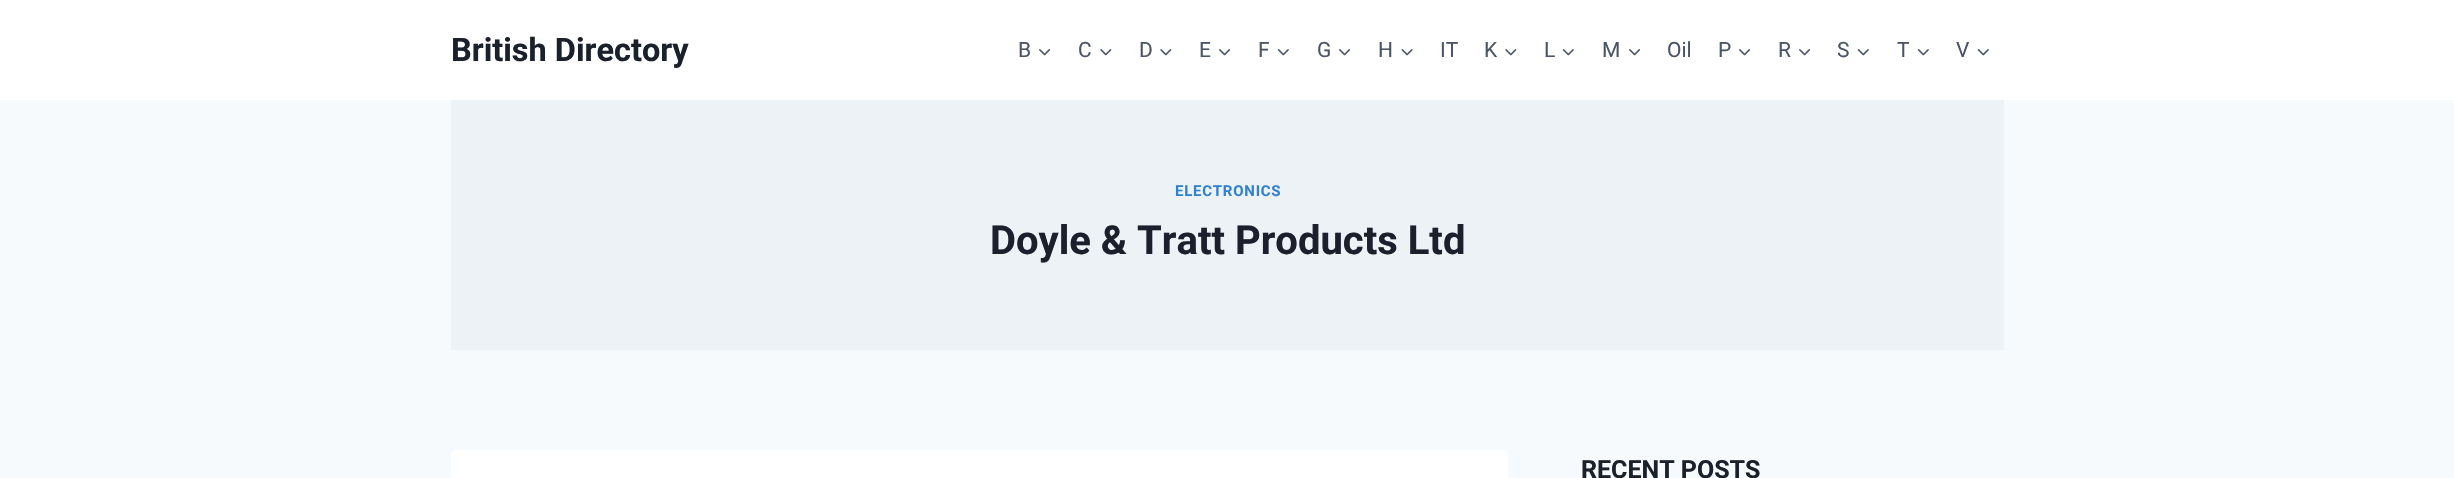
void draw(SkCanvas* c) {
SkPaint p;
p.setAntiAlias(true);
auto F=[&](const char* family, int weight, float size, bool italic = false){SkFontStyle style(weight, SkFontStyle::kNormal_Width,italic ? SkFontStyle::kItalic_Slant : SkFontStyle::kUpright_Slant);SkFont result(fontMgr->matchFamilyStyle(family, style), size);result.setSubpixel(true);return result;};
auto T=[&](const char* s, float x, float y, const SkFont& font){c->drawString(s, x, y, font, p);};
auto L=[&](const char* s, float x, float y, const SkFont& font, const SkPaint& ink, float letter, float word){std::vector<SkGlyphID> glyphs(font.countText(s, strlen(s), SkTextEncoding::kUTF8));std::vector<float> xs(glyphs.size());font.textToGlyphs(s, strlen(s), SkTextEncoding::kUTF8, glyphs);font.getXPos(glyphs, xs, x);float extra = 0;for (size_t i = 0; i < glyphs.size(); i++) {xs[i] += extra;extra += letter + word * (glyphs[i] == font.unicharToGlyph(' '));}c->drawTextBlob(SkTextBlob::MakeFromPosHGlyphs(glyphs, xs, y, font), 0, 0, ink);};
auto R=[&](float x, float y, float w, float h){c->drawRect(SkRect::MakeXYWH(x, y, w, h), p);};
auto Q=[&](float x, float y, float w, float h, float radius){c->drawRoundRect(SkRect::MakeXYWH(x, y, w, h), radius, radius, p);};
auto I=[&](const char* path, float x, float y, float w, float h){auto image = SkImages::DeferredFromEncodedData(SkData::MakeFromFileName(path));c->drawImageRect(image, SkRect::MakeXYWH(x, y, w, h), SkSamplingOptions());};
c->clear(0xfff7fafc);
p.setColor(0xffffffff);
R(0,0,2454,100);
auto f1 = F("Roboto",700,32.5);
p.setColor(0xff1a202c);
T("British Directory",451,61,f1);
auto f2 = F("Roboto",400,21);
p.setColor(0xff4a5568);
T("B",1018,57,f2);
I("1.png",1039,49,12,7);
T("C",1078,57,f2);
I("2.png",1100,49,12,7);
T("D",1139,57,f2);
I("2.png",1160,49,12,7);
T("E",1199,57,f2);
I("1.png",1219,49,12,7);
T("F",1258,57,f2);
I("3.png",1277,49,12,7);
T("G",1317,57,f2);
I("1.png",1339,49,12,7);
T("H",1378,57,f2);
I("4.png",1401,49,12,7);
T("IT",1440,57,f2);
T("K",1484,57,f2);
I("2.png",1505,49,12,7);
T("L",1544,57,f2);
I("3.png",1562,49,12,7);
T("M",1602,57,f2);
I("1.png",1629,49,12,7);
T("Oil",1667,57,f2);
T("P",1718,57,f2);
I("1.png",1739,49,12,7);
T("R",1778,57,f2);
I("1.png",1799,49,12,7);
T("S",1837,57,f2);
I("3.png",1857,49,12,7);
T("T",1897,57,f2);
I("3.png",1917,49,12,7);
T("V",1956,57,f2);
I("3.png",1977,49,12,7);
p.setColor(0xffedf2f7);
R(451,100,1553,250);
auto f3 = F("Roboto",700,15);
p.setColor(0xff3182ce);
L("ELECTRONICS",1175,196,f3,p,.75,0);
auto f4 = F("Roboto",700,40);
p.setColor(0xff1a202c);
T("Doyle & Tratt Products Ltd",990,254,f4);
p.setColor(0xffffffff);
Q(451,450,1057,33,5);
auto f5 = F("Roboto",700,25);
p.setColor(0xff1a202c);
T("RECENT POSTS",1581,478,f5);
}
